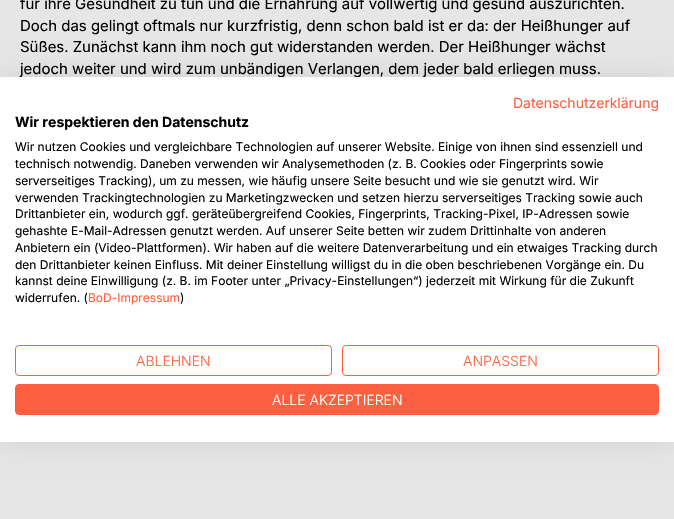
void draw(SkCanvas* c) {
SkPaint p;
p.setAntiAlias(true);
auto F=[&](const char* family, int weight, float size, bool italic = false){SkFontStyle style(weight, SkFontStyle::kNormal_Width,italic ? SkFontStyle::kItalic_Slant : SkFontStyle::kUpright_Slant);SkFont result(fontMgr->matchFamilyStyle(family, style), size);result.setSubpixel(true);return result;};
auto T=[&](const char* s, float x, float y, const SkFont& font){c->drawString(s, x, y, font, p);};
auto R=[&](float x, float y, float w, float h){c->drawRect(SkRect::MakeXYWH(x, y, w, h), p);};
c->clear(0xffe6e6e6);
auto f1 = F("Inter",400,15);
p.setColor(0xff000000);
T("für ihre Gesundheit zu tun und die Ernährung auf vollwertig und gesund auszurichten.",20,9,f1);
T("Doch das gelingt oftmals nur kurzfristig, denn schon bald ist er da: der Heißhunger auf",20,31,f1);
T("Süßes. Zunächst kann ihm noch gut widerstanden werden. Der Heißhunger wächst",20,52,f1);
T("jedoch weiter und wird zum unbändigen Verlangen, dem jeder bald erliegen muss.",20,74,f1);
p.setColor(0x1a000000);
p.setMaskFilter(SkMaskFilter::MakeBlur(kNormal_SkBlurStyle, 12));
c->drawRect(SkRect::MakeXYWH(0,77,674,365),p);
p.setMaskFilter(nullptr);
p.setColor(0xffffffff);
R(0,77,674,365);
auto f2 = F("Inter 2",400,14);
p.setColor(0xfffd6041);
T("Datenschutzerklärung",513,108,f2);
auto f3 = F("Inter",700,14);
p.setColor(0xff000000);
T("Wir respektieren den Datenschutz",15,127,f3);
auto f4 = F("Inter 2",400,12);
T("Wir nutzen Cookies und vergleichbare Technologien auf unserer Website. Einige von ihnen sind essenziell und",15,151,f4);
T("technisch notwendig. Daneben verwenden wir Analysemethoden (z. B. Cookies oder Fingerprints sowie",15,168,f4);
T("serverseitiges Tracking), um zu messen, wie häufig unsere Seite besucht und wie sie genutzt wird. Wir",15,185,f4);
T("verwenden Trackingtechnologien zu Marketingzwecken und setzen hierzu serverseitiges Tracking sowie auch",15,202,f4);
T("Drittanbieter ein, wodurch ggf. geräteübergreifend Cookies, Fingerprints, Tracking-Pixel, IP-Adressen sowie",15,218,f4);
T("gehashte E-Mail-Adressen genutzt werden. Auf unserer Seite betten wir zudem Drittinhalte von anderen",15,235,f4);
T("Anbietern ein (Video-Plattformen). Wir haben auf die weitere Datenverarbeitung und ein etwaiges Tracking durch",15,252,f4);
T("den Drittanbieter keinen Einfluss. Mit deiner Einstellung willigst du in die oben beschriebenen Vorgänge ein. Du",15,269,f4);
T("kannst deine Einwilligung (z. B. im Footer unter „Privacy-Einstellungen“) jederzeit mit Wirkung für die Zukunft",15,285,f4);
T("widerrufen. (",15,302,f4);
p.setColor(0xfffd6041);
T("BoD-Impressum",88,302,f4);
p.setColor(0xff000000);
T(")",180,302,f4);
p.setStroke(true);
p.setStrokeWidth(1);
p.setColor(0xfffd6041);
c->drawRoundRect(SkRect::MakeXYWH(15.5,345.5,316,30),3.5,3.5,p);
auto f5 = F("Inter",300,14);
p.setStroke(false);
T("ABLEHNEN",136,366,f5);
p.setStroke(true);
c->drawRoundRect(SkRect::MakeXYWH(342.5,345.5,316,30),3.5,3.5,p);
p.setStroke(false);
T("ANPASSEN",463,366,f5);
c->drawRoundRect(SkRect::MakeXYWH(15.5,384.5,643,30),3.5,3.5,p);
p.setStroke(true);
c->drawRoundRect(SkRect::MakeXYWH(15.5,384.5,643,30),3.5,3.5,p);
p.setStroke(false);
p.setColor(0xffffffff);
T("ALLE AKZEPTIEREN",272,405,f5);
}
